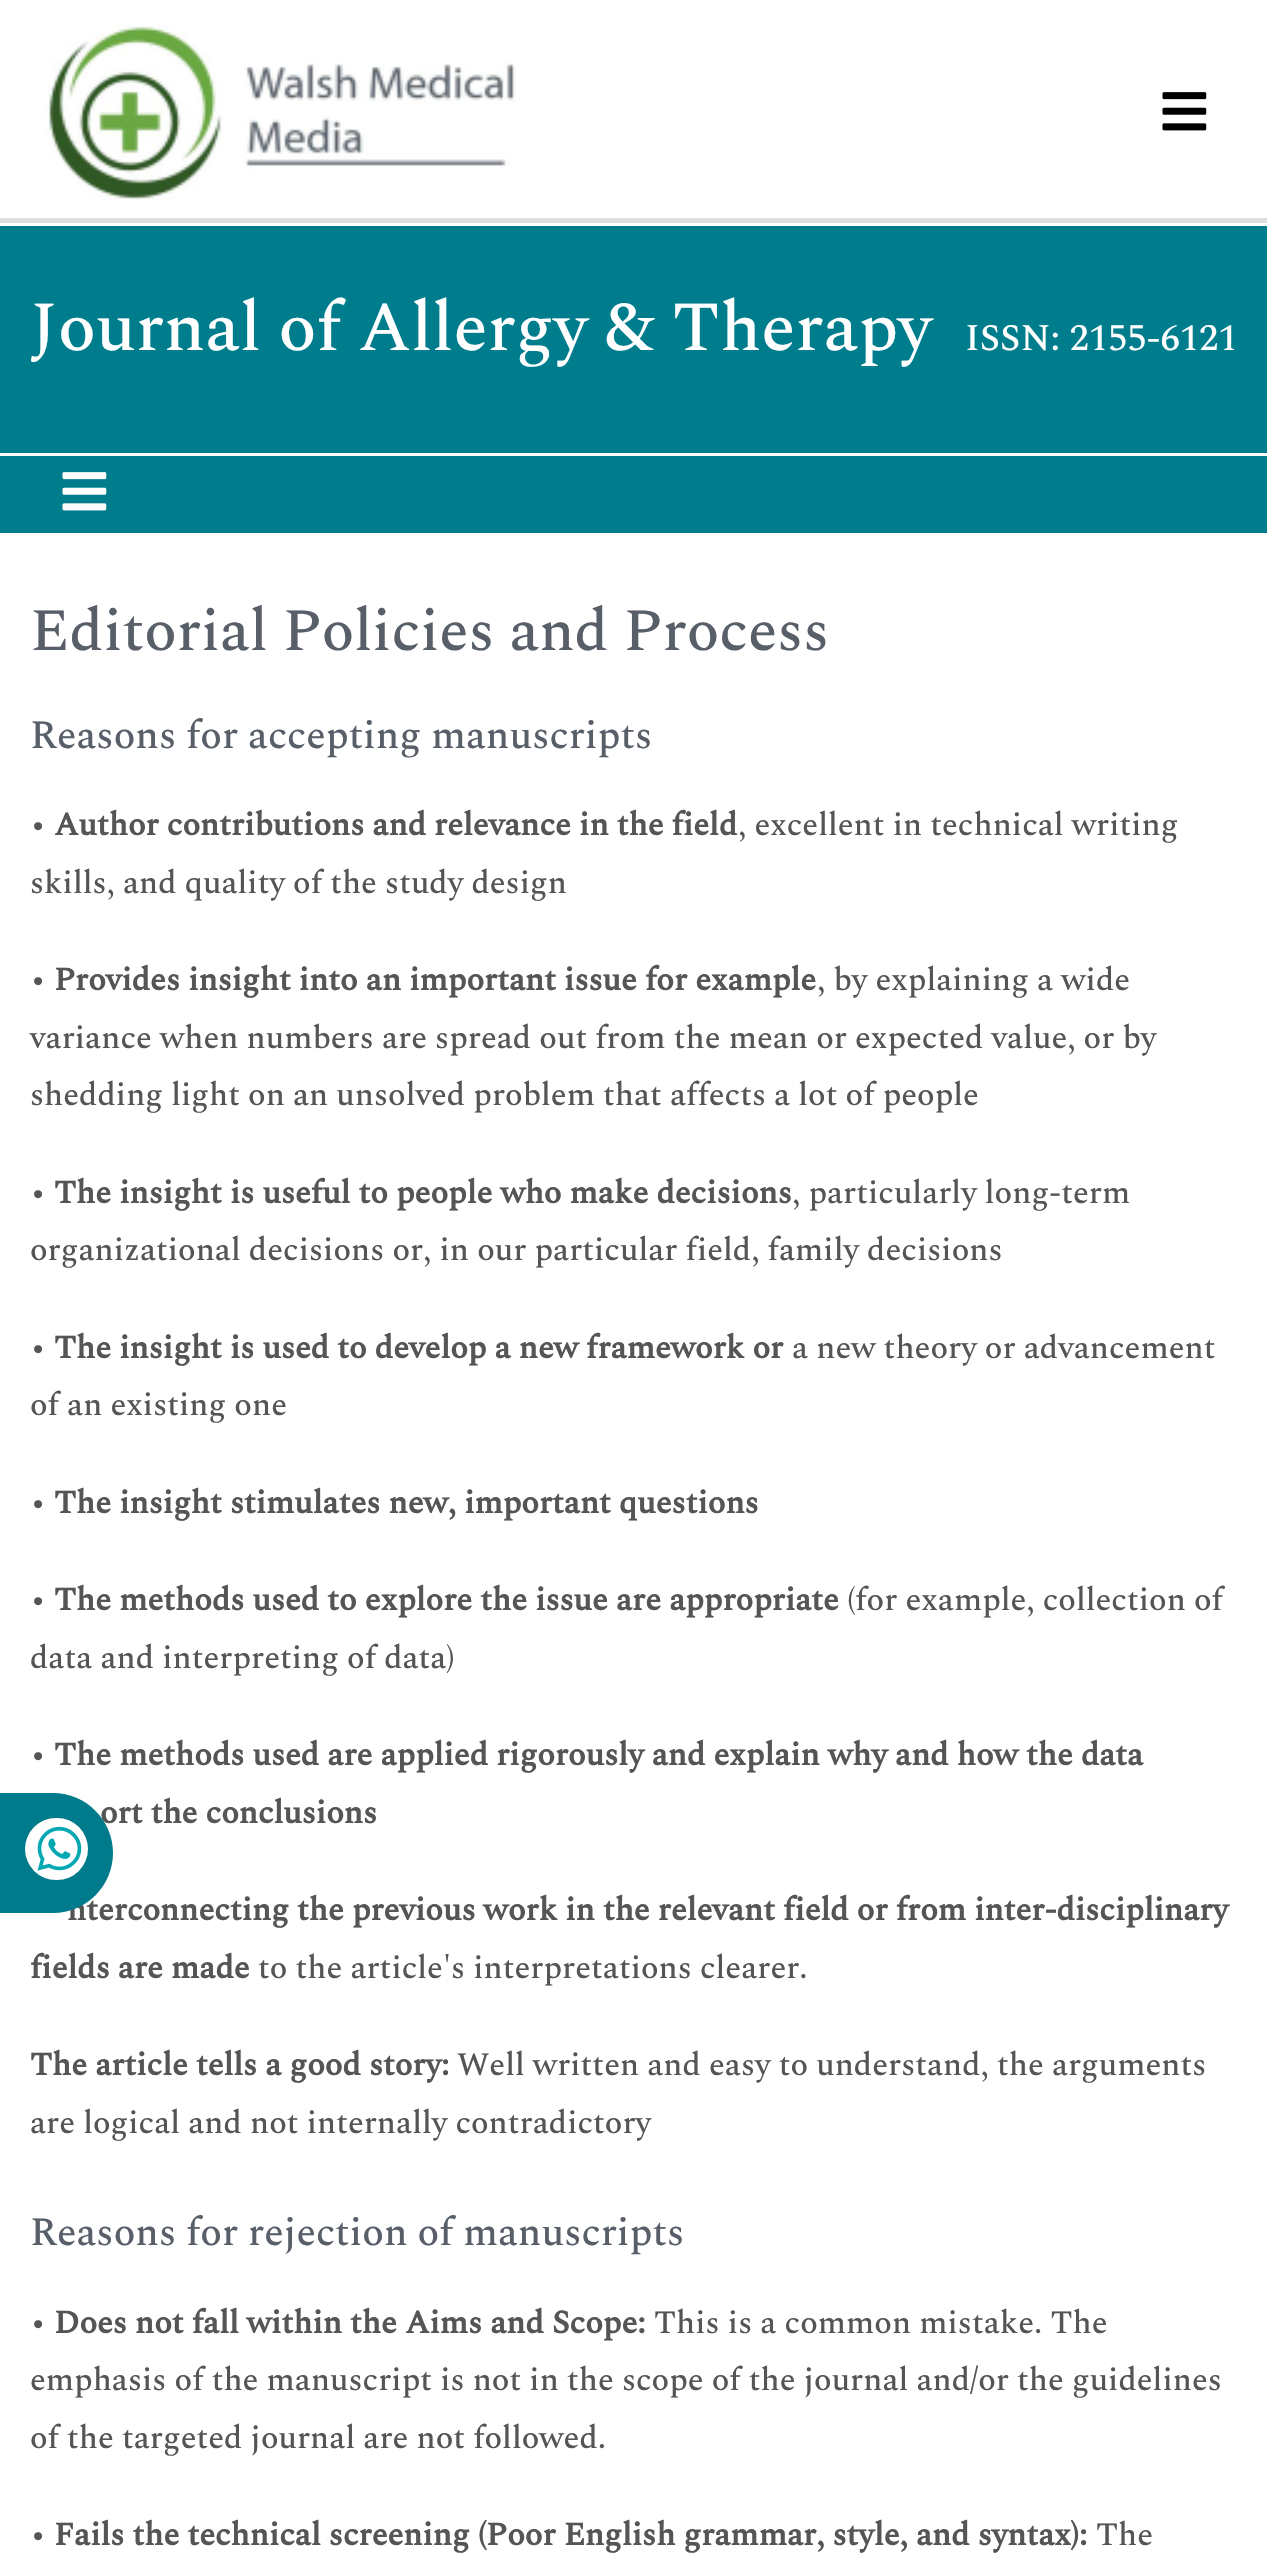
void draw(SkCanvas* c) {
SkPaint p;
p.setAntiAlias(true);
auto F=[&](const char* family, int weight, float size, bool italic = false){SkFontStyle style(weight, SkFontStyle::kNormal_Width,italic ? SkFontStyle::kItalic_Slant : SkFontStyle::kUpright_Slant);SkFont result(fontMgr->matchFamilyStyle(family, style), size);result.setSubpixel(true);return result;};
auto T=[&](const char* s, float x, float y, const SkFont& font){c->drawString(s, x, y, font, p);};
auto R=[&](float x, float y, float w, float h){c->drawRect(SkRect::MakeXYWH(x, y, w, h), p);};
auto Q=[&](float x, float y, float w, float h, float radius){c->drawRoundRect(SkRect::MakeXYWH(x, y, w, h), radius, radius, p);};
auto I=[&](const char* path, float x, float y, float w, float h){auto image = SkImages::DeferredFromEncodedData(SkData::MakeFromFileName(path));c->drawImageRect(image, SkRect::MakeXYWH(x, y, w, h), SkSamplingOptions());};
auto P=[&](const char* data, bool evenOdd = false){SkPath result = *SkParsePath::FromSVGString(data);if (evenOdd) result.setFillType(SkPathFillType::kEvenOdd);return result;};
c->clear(0xffffffff);
p.setColor(0xffdedede);
R(0,218,1267,5);
I("1.png",46,23,470,177);
I("2.png",1162,92,45,39);
p.setColor(0xff007d8d);
R(0,226,1267,307);
auto f1 = F("Spectral",500,70);
p.setColor(0xffffffff);
T("Journal of Allergy & Therapy",30,350,f1);
auto f2 = F("Spectral",500,37.5);
T("ISSN: 2155-6121",965,350,f2);
R(0,453,1267,3);
I("3.png",62,472,45,39);
auto f3 = F("Spectral",700,32.5);
p.setColor(0xff555555);
T("ort the conclusions",100,1823,f3);
T("nterconnecting the previous work in the relevant field or from inter-disciplinary",67,1920,f3);
p.setColor(0xff007b8b);
c->drawPath(P("M-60 1793h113c33 0 60 27 60 60c0 33-27 60-60 60h-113z"),p);
p.setColor(0xffffffff);
Q(25,1818,63,62,31);
I("4.png",37,1826,45,45);
auto f4 = F("Spectral",500,60);
p.setColor(0xff585f69);
T("Editorial Policies and Process",30,650,f4);
auto f5 = F("Spectral",500,40);
T("Reasons for accepting manuscripts",30,748,f5);
auto f6 = F("Spectral",500,32.5);
p.setColor(0xff555555);
T("•",30,835,f6);
T("Author contributions and relevance in the field",54,835,f3);
T(", excellent in technical writing",738,835,f6);
T("skills, and quality of the study design",30,893,f6);
T("•",30,990,f6);
T("Provides insight into an important issue for example",54,990,f3);
T(", by explaining a wide",817,990,f6);
T("variance when numbers are spread out from the mean or expected value, or by",30,1048,f6);
T("shedding light on an unsolved problem that affects a lot of people",30,1105,f6);
T("•",30,1203,f6);
T("The insight is useful to people who make decisions",54,1203,f3);
T(", particularly long-term",792,1203,f6);
T("organizational decisions or, in our particular field, family decisions",30,1260,f6);
T("•",30,1358,f6);
T("The insight is used to develop a new framework or",54,1358,f3);
T("a new theory or advancement",792,1358,f6);
T("of an existing one",30,1415,f6);
T("•",30,1513,f6);
T("The insight stimulates new, important questions",54,1513,f3);
T("•",30,1610,f6);
T("The methods used to explore the issue are appropriate",54,1610,f3);
T("(for example, collection of",847,1610,f6);
T("data and interpreting of data)",30,1668,f6);
T("•",30,1765,f6);
T("The methods used are applied rigorously and explain why and how the data",54,1765,f3);
T("fields are made",30,1978,f3);
T("to the article's interpretations clearer.",258,1978,f6);
T("The article tells a good story:",30,2075,f3);
T("Well written and easy to understand, the arguments",457,2075,f6);
T("are logical and not internally contradictory",30,2133,f6);
p.setColor(0xff585f69);
T("Reasons for rejection of manuscripts",30,2245,f5);
p.setColor(0xff555555);
T("•",30,2333,f6);
T("Does not fall within the Aims and Scope:",54,2333,f3);
T("This is a common mistake. The",654,2333,f6);
T("emphasis of the manuscript is not in the scope of the journal and/or the guidelines",30,2390,f6);
T("of the targeted journal are not followed.",30,2448,f6);
T("•",30,2545,f6);
T("Fails the technical screening (Poor English grammar, style, and syntax):",54,2545,f3);
T("The",1096,2545,f6);
}
